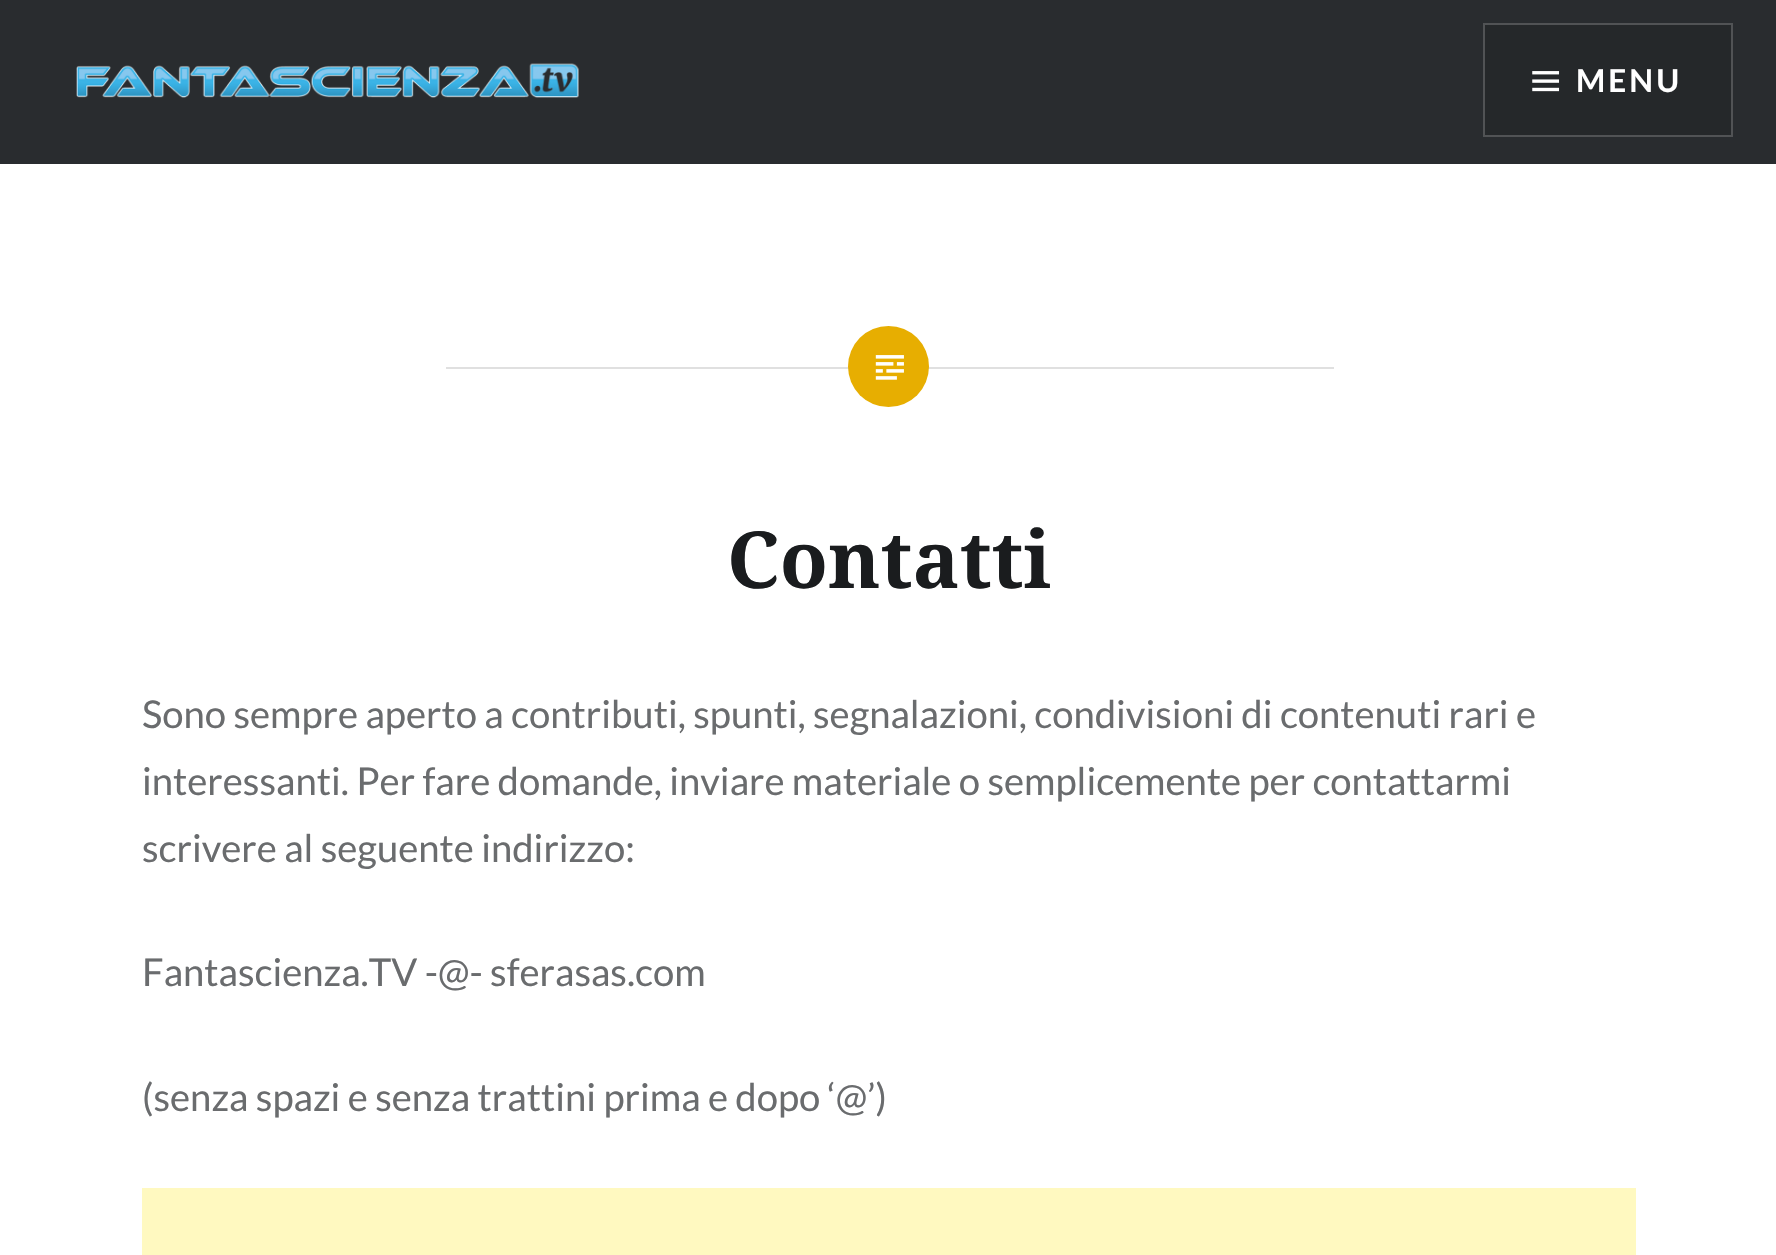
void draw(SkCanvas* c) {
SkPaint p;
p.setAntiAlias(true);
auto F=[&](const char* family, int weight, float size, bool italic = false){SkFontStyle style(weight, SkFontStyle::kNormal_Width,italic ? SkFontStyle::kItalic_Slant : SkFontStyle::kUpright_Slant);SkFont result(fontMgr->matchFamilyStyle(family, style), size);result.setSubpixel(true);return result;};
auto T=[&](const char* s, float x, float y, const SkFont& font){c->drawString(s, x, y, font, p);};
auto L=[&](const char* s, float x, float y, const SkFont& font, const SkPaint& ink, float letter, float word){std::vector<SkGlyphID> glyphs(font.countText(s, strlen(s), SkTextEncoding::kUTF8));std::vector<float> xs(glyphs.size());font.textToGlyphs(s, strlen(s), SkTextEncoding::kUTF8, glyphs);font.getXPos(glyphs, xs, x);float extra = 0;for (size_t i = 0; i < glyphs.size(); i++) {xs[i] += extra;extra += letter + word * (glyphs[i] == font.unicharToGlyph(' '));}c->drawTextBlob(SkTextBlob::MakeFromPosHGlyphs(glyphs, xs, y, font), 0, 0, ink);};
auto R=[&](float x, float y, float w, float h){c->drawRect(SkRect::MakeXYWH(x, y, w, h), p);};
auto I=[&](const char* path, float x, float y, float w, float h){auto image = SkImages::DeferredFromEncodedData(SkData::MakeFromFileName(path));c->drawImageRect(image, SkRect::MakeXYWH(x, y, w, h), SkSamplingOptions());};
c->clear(0xffffffff);
p.setColor(0xff292c2f);
R(0,0,1776,164);
I("1.png",76,63,503,35);
p.setColor(0xff25282a);
c->drawRect(SkRect::MakeXYWH(1484,24,248,112),p);
p.setStroke(true);
p.setStrokeWidth(2);
p.setColor(0xff515355);
c->drawRect(SkRect::MakeXYWH(1484,24,248,112),p);
I("2.png",1532,71,28,21);
auto f1 = F("Lato",700,31.5);
p.setStroke(false);
p.setColor(0xffffffff);
L("MENU",1576,92,f1,p,3,0);
p.setColor(0xffe0e0e0);
R(446,367,888,2);
p.setColor(0xffe7ae01);
c->drawCircle(888.5,366.5,40.5,p);
I("3.png",875,355,29,25);
auto f2 = F("Noto Serif",700,78.75);
p.setColor(0xff1a1c1e);
T("Contatti",727,588,f2);
auto f3 = F("Lato",400,38.25);
p.setColor(0xff6a6c6e);
T("Sono sempre aperto a contributi, spunti, segnalazioni, condivisioni di contenuti rari e",142,728,f3);
T("interessanti. Per fare domande, inviare materiale o semplicemente per contattarmi",142,795,f3);
T("scrivere al seguente indirizzo:",142,862,f3);
T("Fantascienza.TV -@- sferasas.com",142,986,f3);
T("(senza spazi e senza trattini prima e dopo ‘@’)",142,1111,f3);
p.setColor(0xfffff9c0);
R(142,1188,1494,67);
}
